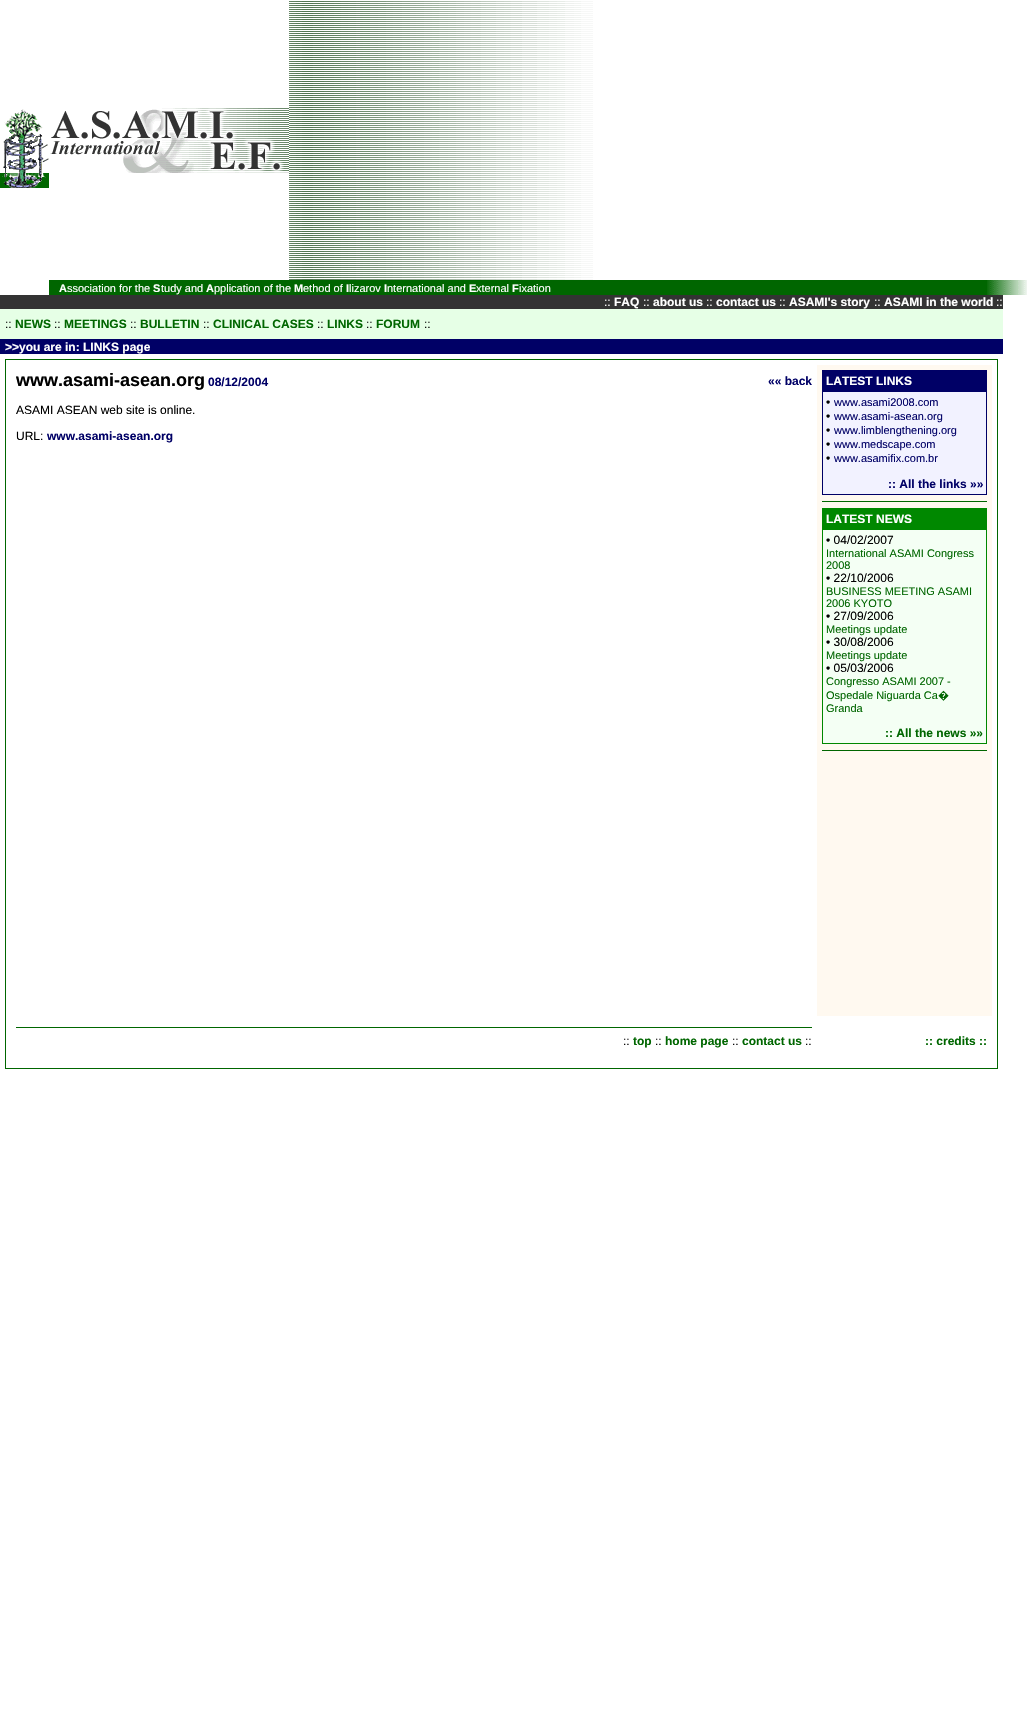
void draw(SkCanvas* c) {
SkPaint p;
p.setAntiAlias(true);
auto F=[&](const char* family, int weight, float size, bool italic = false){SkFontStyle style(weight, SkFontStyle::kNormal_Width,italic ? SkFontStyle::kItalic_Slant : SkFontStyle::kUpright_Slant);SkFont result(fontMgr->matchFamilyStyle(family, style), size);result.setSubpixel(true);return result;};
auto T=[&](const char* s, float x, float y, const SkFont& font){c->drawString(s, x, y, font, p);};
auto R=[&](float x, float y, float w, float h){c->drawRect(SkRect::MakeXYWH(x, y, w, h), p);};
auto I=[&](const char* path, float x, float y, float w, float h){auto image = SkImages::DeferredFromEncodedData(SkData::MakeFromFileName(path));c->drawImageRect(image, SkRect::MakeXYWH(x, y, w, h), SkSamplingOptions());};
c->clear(0xffffffff);
I("1.png",0,109,49,79);
I("2.png",51,108,238,31);
I("3.png",50,139,239,34);
I("4.png",289,1,304,279);
p.setColor(0xff006600);
R(49,280,938,15);
auto f1 = F("Liberation Sans",700,11);
p.setColor(0xffffffff);
T("A",59,292,f1);
auto f2 = F("Liberation Sans",400,11);
T("ssociation for the",67,292,f2);
T("S",153,292,f1);
T("tudy and",161,292,f2);
T("A",206,292,f1);
T("pplication of the",214,292,f2);
T("M",294,292,f1);
T("ethod of",303,292,f2);
T("I",346,292,f1);
T("lizarov",349,292,f2);
T("I",384,292,f1);
T("nternational and",387,292,f2);
T("E",469,292,f1);
T("xternal",476,292,f2);
T("F",512,292,f1);
T("ixation",519,292,f2);
I("5.png",987,280,40,15);
p.setColor(0xff333333);
R(0,295,1003,14);
auto f3 = F("Liberation Sans",400,12);
p.setColor(0xffffffff);
T("::",604,306,f3);
auto f4 = F("Liberation Sans",700,12);
T("FAQ",614,306,f4);
T("::",643,306,f3);
T("about us",653,306,f4);
T("::",706,306,f3);
T("contact us",716,306,f4);
T("::",779,306,f3);
T("ASAMI's story",789,306,f4);
T("::",874,306,f3);
T("ASAMI in the world",884,306,f4);
T("::",996,306,f3);
p.setColor(0xffe6ffe6);
R(0,309,1003,30);
p.setColor(0xff000000);
T("::",5,328,f3);
p.setColor(0xff006600);
T("NEWS",15,328,f4);
p.setColor(0xff000000);
T("::",54,328,f3);
p.setColor(0xff006600);
T("MEETINGS",64,328,f4);
p.setColor(0xff000000);
T("::",130,328,f3);
p.setColor(0xff006600);
T("BULLETIN",140,328,f4);
p.setColor(0xff000000);
T("::",203,328,f3);
p.setColor(0xff006600);
T("CLINICAL CASES",213,328,f4);
p.setColor(0xff000000);
T("::",317,328,f3);
p.setColor(0xff006600);
T("LINKS",327,328,f4);
p.setColor(0xff000000);
T("::",366,328,f3);
p.setColor(0xff006600);
T("FORUM",376,328,f4);
p.setColor(0xff000000);
T("::",424,328,f3);
p.setColor(0xff000066);
R(0,339,1003,15);
p.setColor(0xffffffff);
T(">>you are in: LINKS page",5,351,f4);
p.setColor(0xff006600);
R(5,359,993,710);
p.setColor(0xffffffff);
R(6,360,991,708);
auto f5 = F("Liberation Sans",700,18);
p.setColor(0xff000000);
T("www.asami-asean.org",16,386,f5);
p.setColor(0xff000066);
T("08/12/2004",208,386,f4);
T("«« back",768,385,f4);
p.setColor(0xff000000);
T("ASAMI ASEAN web site is online.",16,414,f3);
T("URL:",16,440,f3);
p.setColor(0xff000066);
T("www.asami-asean.org",47,440,f4);
p.setColor(0xfffff9f0);
R(817,365,175,651);
p.setColor(0xff000066);
R(822,370,165,125);
p.setColor(0xffffffff);
T("LATEST LINKS",826,385,f4);
p.setColor(0xfff2f2ff);
R(823,392,163,102);
p.setColor(0xff000000);
T("•",826,406,f3);
p.setColor(0xff000066);
T("www.asami2008.com",834,406,f2);
p.setColor(0xff000000);
T("•",826,420,f3);
p.setColor(0xff000066);
T("www.asami-asean.org",834,420,f2);
p.setColor(0xff000000);
T("•",826,434,f3);
p.setColor(0xff000066);
T("www.limblengthening.org",834,434,f2);
p.setColor(0xff000000);
T("•",826,448,f3);
p.setColor(0xff000066);
T("www.medscape.com",834,448,f2);
p.setColor(0xff000000);
T("•",826,462,f3);
p.setColor(0xff000066);
T("www.asamifix.com.br",834,462,f2);
T(":: All the links »»",888,488,f4);
p.setColor(0xff006600);
R(822,501,165,1);
p.setColor(0xff008800);
R(822,508,165,236);
p.setColor(0xffffffff);
T("LATEST NEWS",826,523,f4);
p.setColor(0xfff4fff4);
R(823,530,163,213);
p.setColor(0xff000000);
T("• 04/02/2007",826,544,f3);
p.setColor(0xff006600);
T("International ASAMI Congress",826,557,f2);
T("2008",826,569,f2);
p.setColor(0xff000000);
T("• 22/10/2006",826,582,f3);
p.setColor(0xff006600);
T("BUSINESS MEETING ASAMI",826,595,f2);
T("2006 KYOTO",826,607,f2);
p.setColor(0xff000000);
T("• 27/09/2006",826,620,f3);
p.setColor(0xff006600);
T("Meetings update",826,633,f2);
p.setColor(0xff000000);
T("• 30/08/2006",826,646,f3);
p.setColor(0xff006600);
T("Meetings update",826,659,f2);
p.setColor(0xff000000);
T("• 05/03/2006",826,672,f3);
p.setColor(0xff006600);
T("Congresso ASAMI 2007 -",826,685,f2);
T("Ospedale Niguarda Ca",826,699,f2);
auto f6 = F("Noto Sans",400,11);
T("�",938,699,f6);
T("Granda",826,712,f2);
T(":: All the news »»",885,737,f4);
R(822,750,165,1);
R(16,1027,796,1);
p.setColor(0xff000000);
T("::",623,1045,f3);
p.setColor(0xff006600);
T("top",633,1045,f4);
p.setColor(0xff000000);
T("::",655,1045,f3);
p.setColor(0xff006600);
T("home page",665,1045,f4);
p.setColor(0xff000000);
T("::",732,1045,f3);
p.setColor(0xff006600);
T("contact us",742,1045,f4);
p.setColor(0xff000000);
T("::",805,1045,f3);
p.setColor(0xff006600);
T(":: credits ::",925,1045,f4);
}
